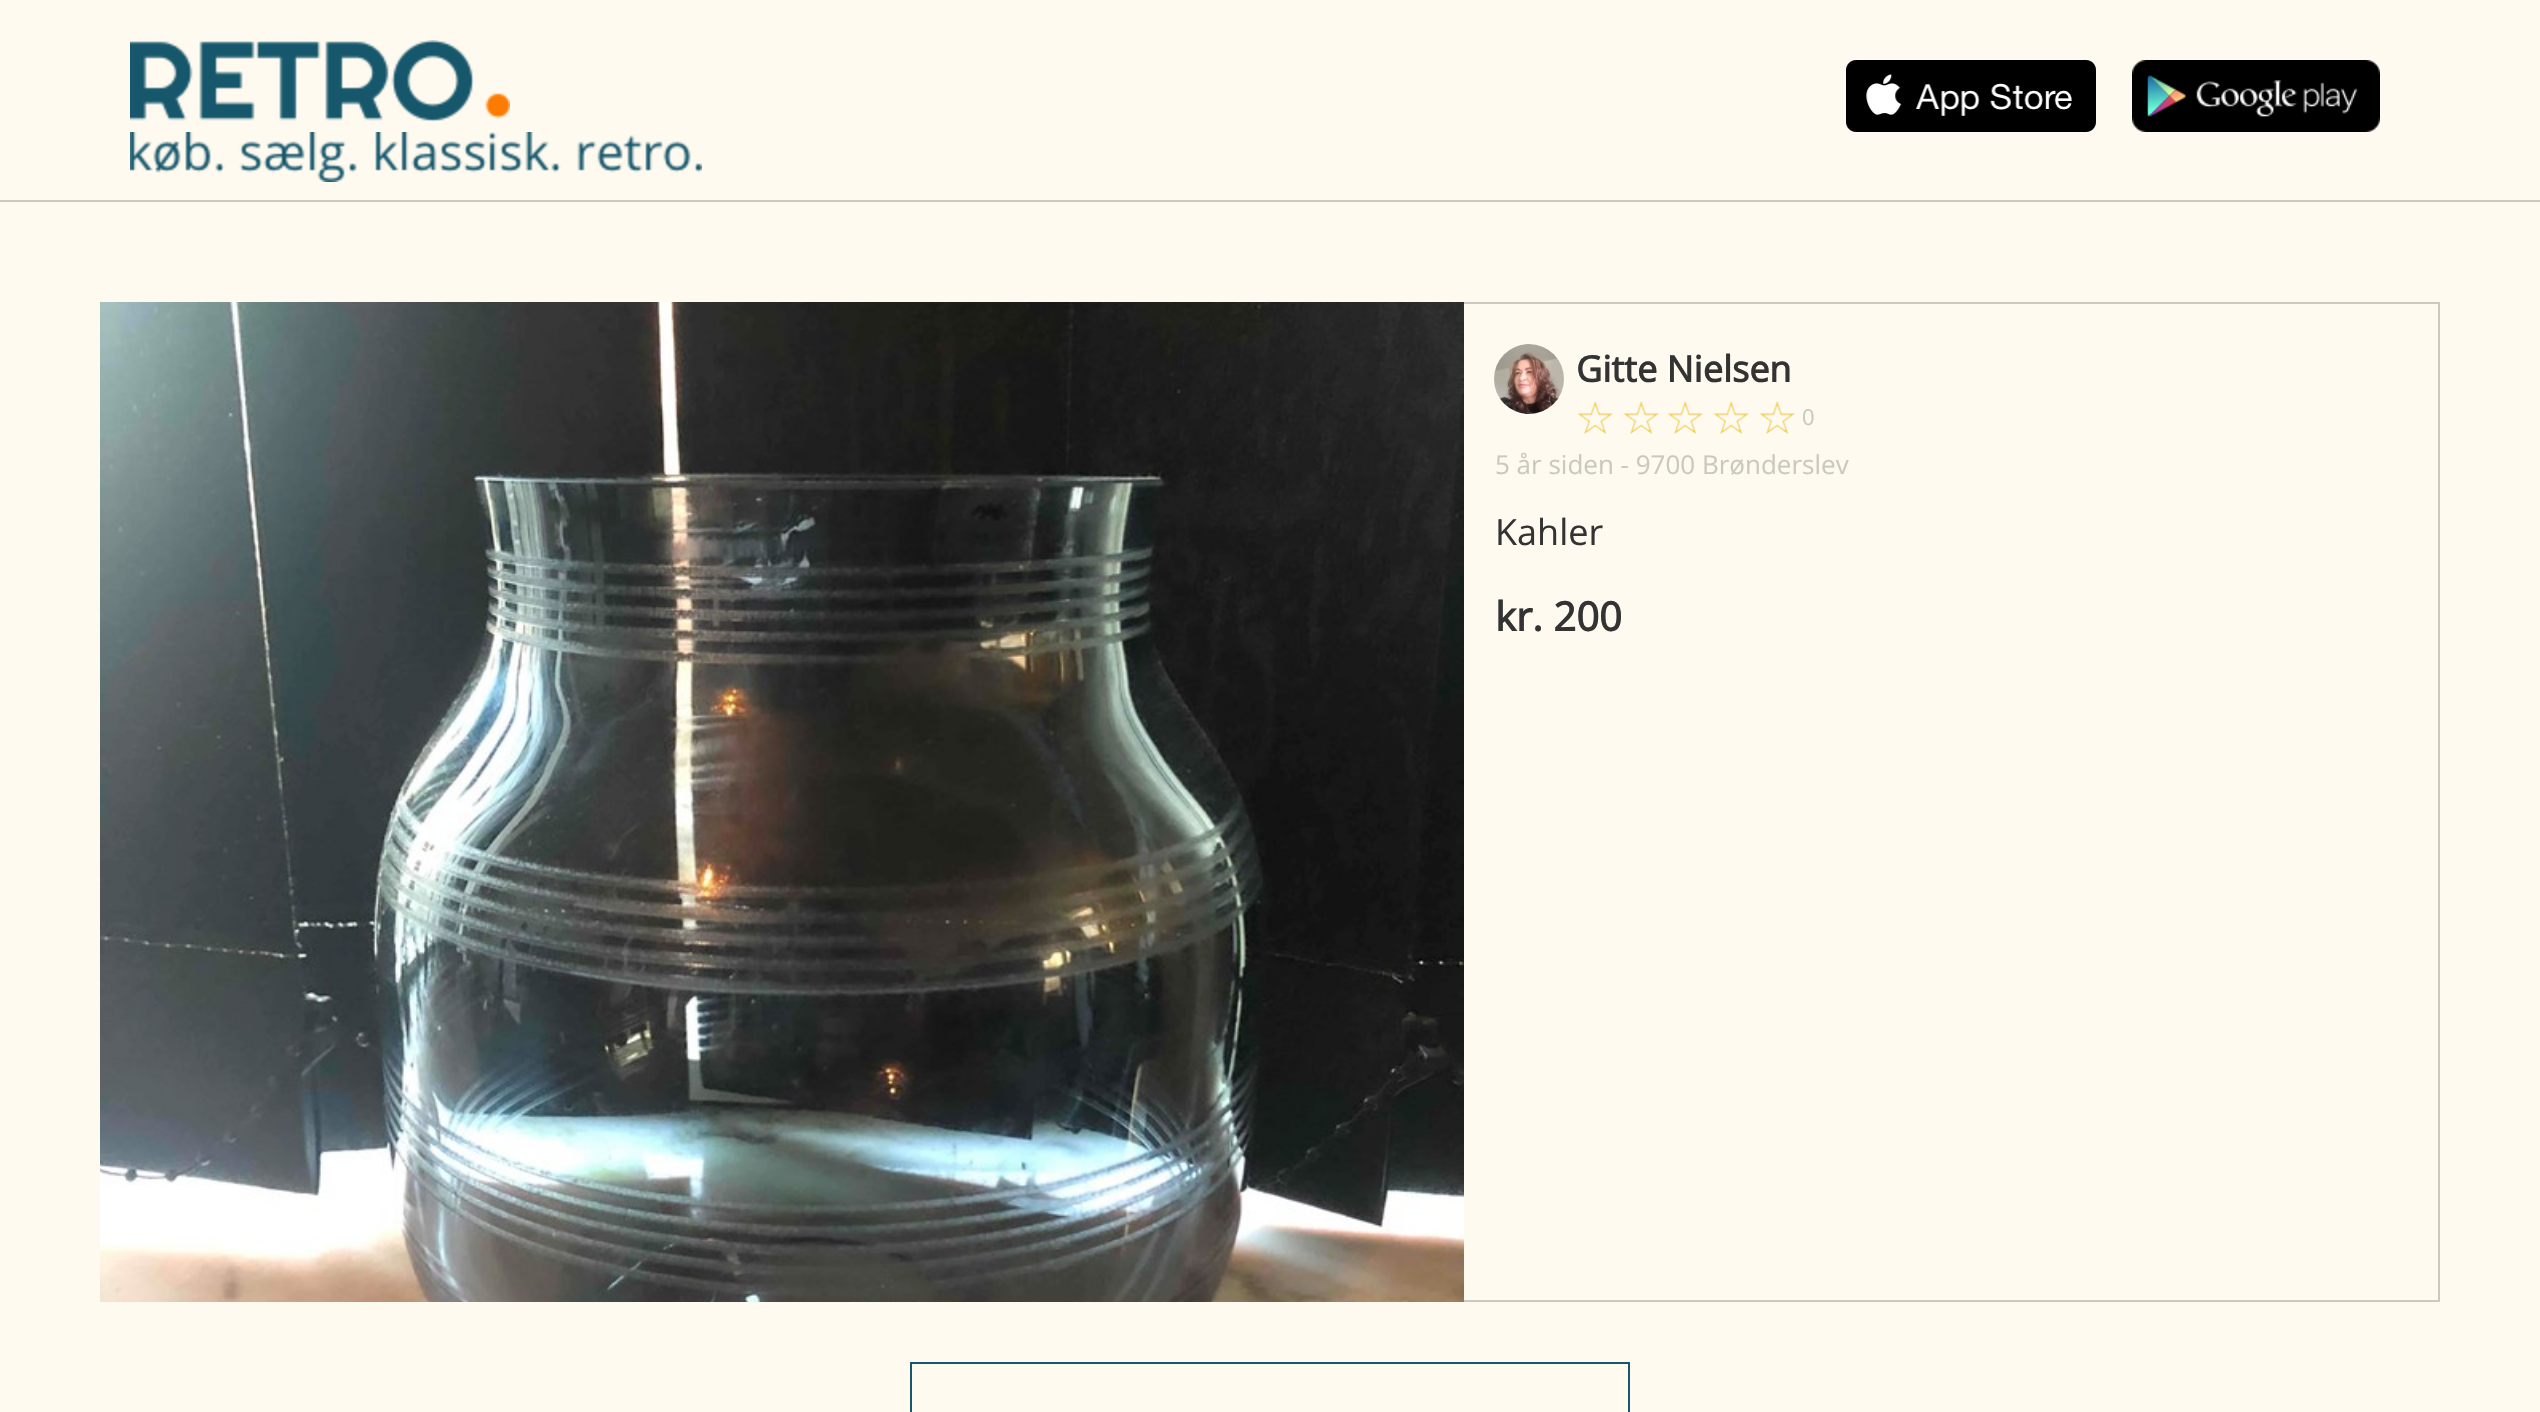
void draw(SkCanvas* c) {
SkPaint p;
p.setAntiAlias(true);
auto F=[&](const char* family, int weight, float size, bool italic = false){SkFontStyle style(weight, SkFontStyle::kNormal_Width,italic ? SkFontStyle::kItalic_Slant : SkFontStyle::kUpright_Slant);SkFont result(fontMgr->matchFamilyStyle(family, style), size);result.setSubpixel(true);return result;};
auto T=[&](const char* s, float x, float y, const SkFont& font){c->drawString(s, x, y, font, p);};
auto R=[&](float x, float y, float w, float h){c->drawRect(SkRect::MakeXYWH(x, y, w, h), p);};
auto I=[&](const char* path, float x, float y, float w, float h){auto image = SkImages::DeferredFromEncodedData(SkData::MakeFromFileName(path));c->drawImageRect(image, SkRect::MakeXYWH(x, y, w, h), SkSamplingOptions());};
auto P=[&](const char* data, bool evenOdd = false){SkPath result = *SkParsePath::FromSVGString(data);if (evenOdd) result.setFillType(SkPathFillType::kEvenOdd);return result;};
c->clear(0xfffffaf0);
I("1.png",130,40,380,82);
I("2.png",130,132,572,50);
I("3.png",1846,60,250,72);
I("4.png",2132,60,248,72);
p.setColor(0xffccc8c0);
R(0,200,2540,2);
I("5.png",100,302,1364,1000);
c->drawPath(P("M1464 302h976l-2 2h-974z"),p);
p.setColor(0x33000000);
c->drawPath(P("M2440 302v1000l-2-2v-996z"),p);
c->drawPath(P("M2440 1302h-976v-2h974z"),p);
I("6.png",1494,344,70,70);
auto f1 = F("Open Sans",700,36);
p.setColor(0xff333333);
T("Gitte Nielsen",1576,382,f1);
I("7.png",1577,401,36,33);
I("8.png",1623,401,36,33);
I("8.png",1667,401,36,33);
I("8.png",1713,401,36,33);
I("9.png",1759,401,36,33);
auto f2 = F("Open Sans",400,22);
p.setColor(0xffcac9be);
T("0",1802,425,f2);
auto f3 = F("Open Sans",400,26);
T("5 år siden - 9700 Brønderslev",1495,474,f3);
auto f4 = F("Open Sans",400,36);
p.setColor(0xff333333);
T("Kahler",1495,545,f4);
auto f5 = F("Open Sans",700,40);
T("kr. 200",1495,631,f5);
p.setStroke(true);
p.setStrokeWidth(2);
p.setColor(0xff16576b);
c->drawRect(SkRect::MakeXYWH(911,1363,718,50),p);
}
